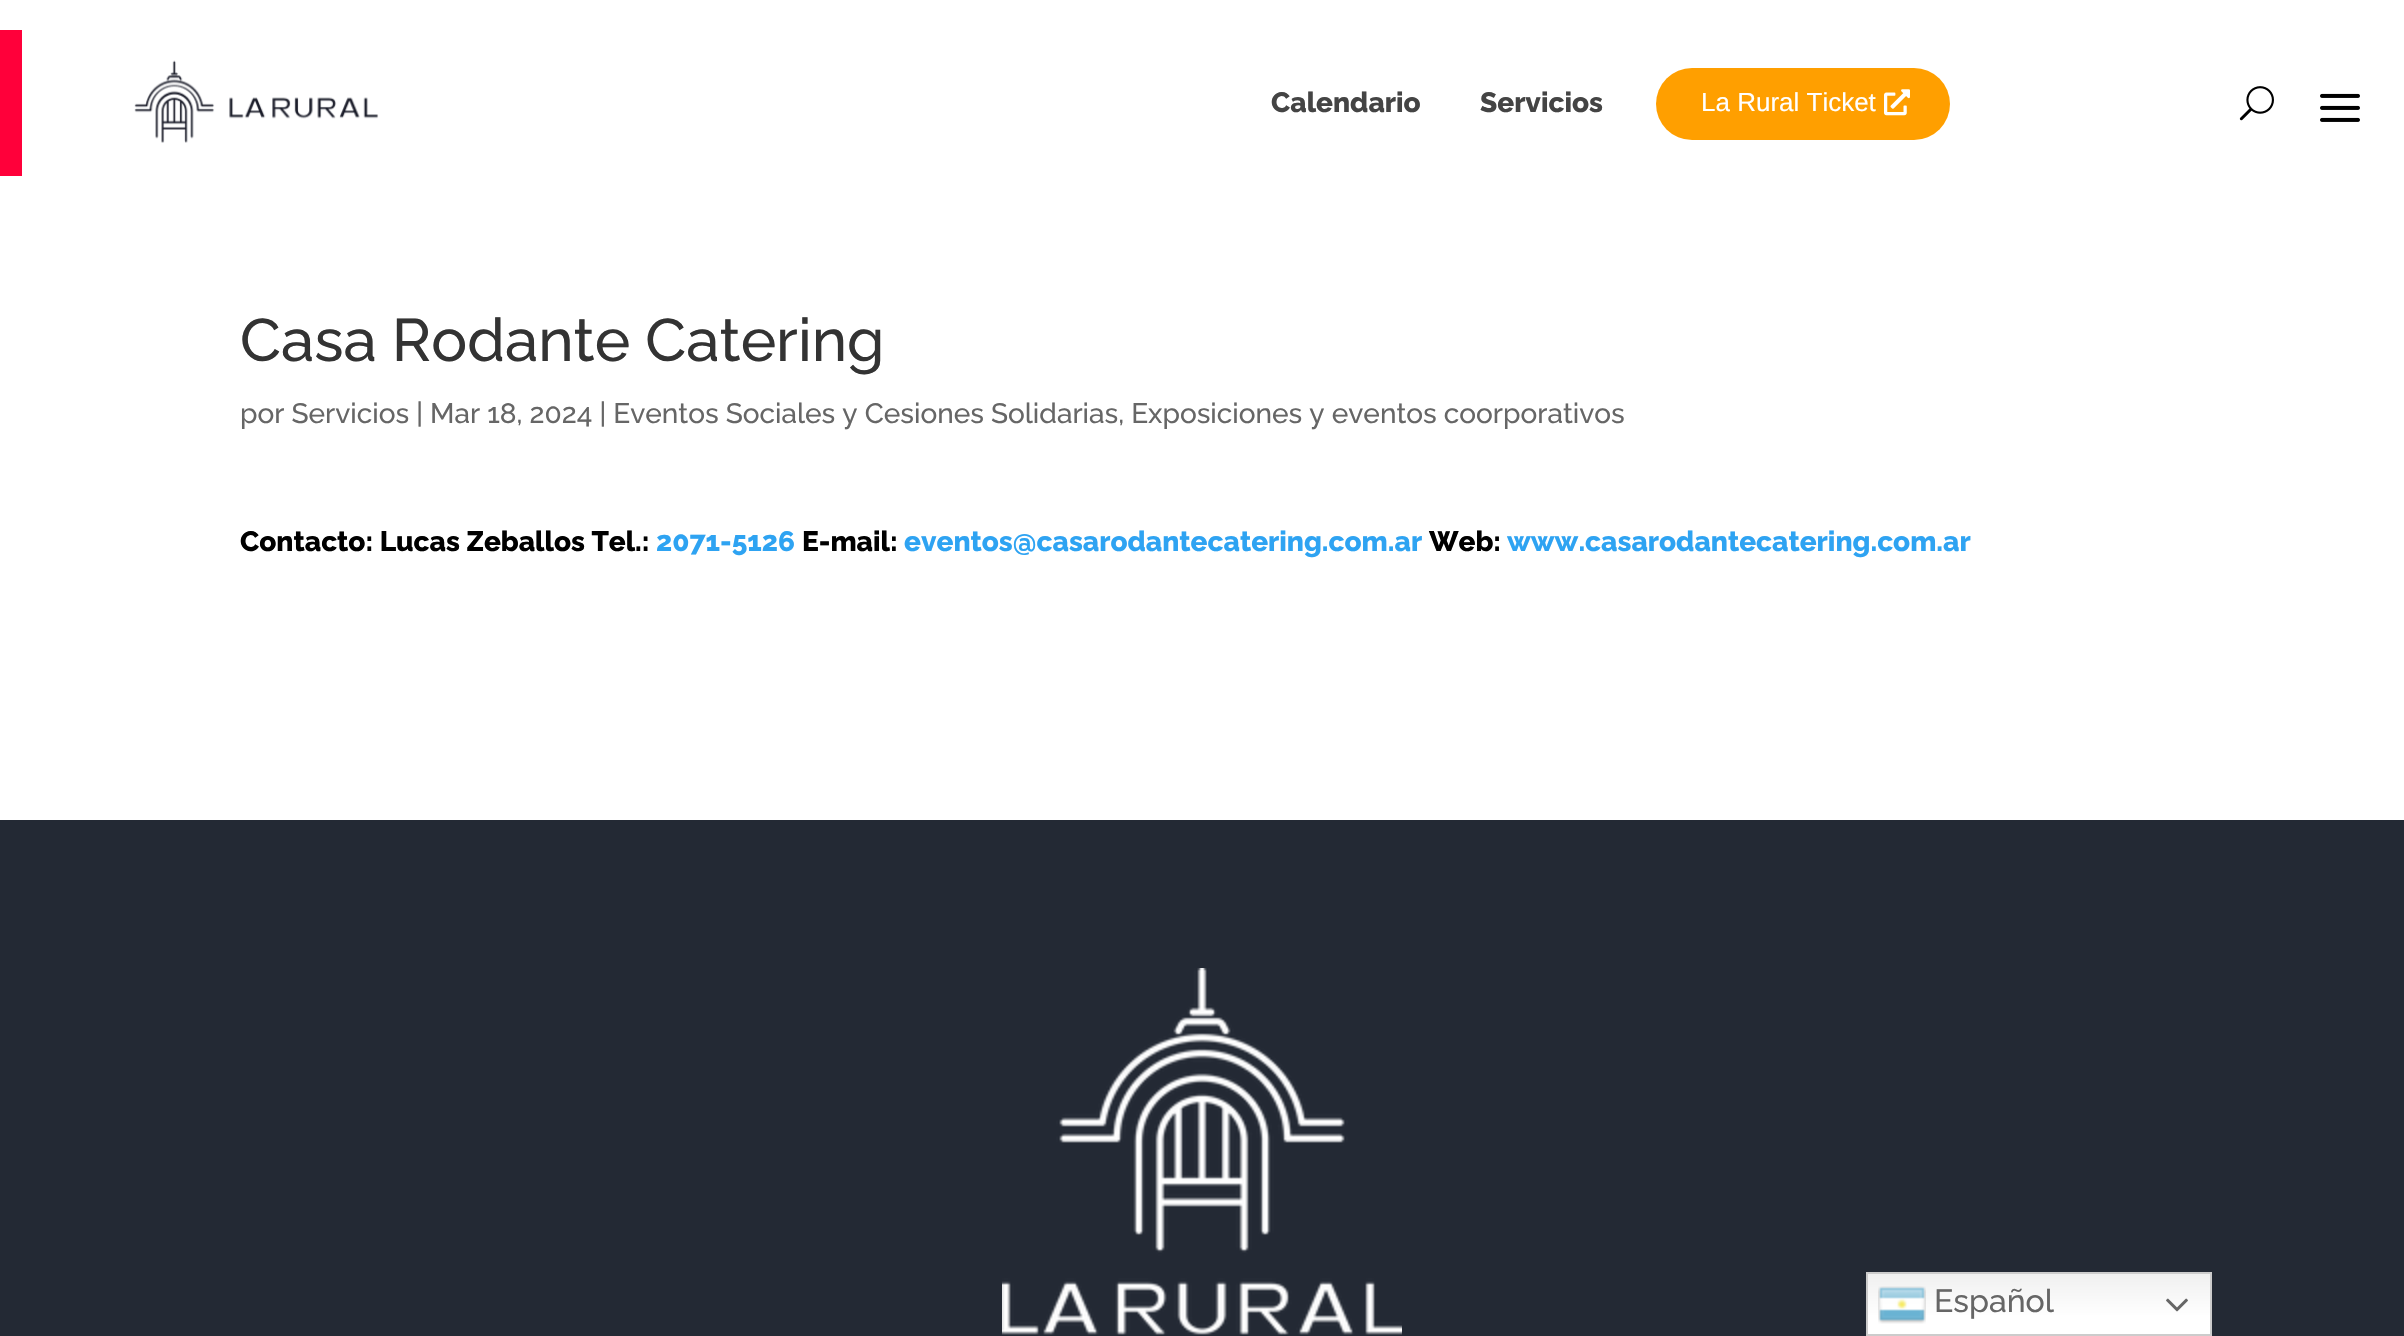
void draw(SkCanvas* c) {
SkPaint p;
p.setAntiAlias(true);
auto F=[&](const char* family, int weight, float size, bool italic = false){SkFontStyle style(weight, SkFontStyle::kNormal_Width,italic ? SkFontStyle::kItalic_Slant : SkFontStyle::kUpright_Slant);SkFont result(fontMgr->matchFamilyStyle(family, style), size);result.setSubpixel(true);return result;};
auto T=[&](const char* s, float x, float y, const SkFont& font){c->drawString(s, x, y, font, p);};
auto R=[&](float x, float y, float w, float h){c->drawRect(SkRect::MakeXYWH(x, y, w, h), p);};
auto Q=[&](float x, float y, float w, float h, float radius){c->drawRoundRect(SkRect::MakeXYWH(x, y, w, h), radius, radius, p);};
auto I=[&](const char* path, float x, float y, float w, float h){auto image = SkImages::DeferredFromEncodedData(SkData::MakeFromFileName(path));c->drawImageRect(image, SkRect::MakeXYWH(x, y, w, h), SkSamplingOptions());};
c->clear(0xffffffff);
p.setColor(0xffff003a);
R(0,30,22,146);
I("1.png",134,60,245,83);
auto f1 = F("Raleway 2",100,28);
p.setColor(0xff444444);
T("Calendario",1271,112,f1);
T("Servicios",1480,112,f1);
p.setColor(0xffff9f00);
Q(1656,68,294,72,36);
auto f2 = F("Liberation Sans",400,26);
p.setColor(0xffffffff);
T("La Rural Ticket",1701,111,f2);
I("2.png",1884,89,26,27);
I("3.png",2239,86,35,35);
I("4.png",2320,93,40,29);
auto f3 = F("Raleway",100,60);
p.setColor(0xff333333);
T("Casa Rodante Catering",240,361,f3);
auto f4 = F("Raleway",100,28);
p.setColor(0xff666666);
T("por Servicios | Mar 18, 2024 | Eventos Sociales y Cesiones Solidarias, Exposiciones y eventos coorporativos",240,423,f4);
p.setColor(0xff000000);
T("Contacto: Lucas Zeballos Tel.:",240,551,f1);
p.setColor(0xff2ea3f2);
T("2071-5126",656,551,f1);
p.setColor(0xff000000);
T("E-mail:",802,551,f1);
p.setColor(0xff2ea3f2);
T("eventos@casarodantecatering.com.ar",904,551,f1);
p.setColor(0xff000000);
T("Web:",1429,551,f1);
p.setColor(0xff2ea3f2);
T("www.casarodantecatering.com.ar",1507,551,f1);
p.setColor(0xff232934);
R(0,820,2404,516);
I("5.png",1002,968,400,367);
{
const SkColor colors[] = {0xffefefef,0xffffffff};
const float stops[] = {0,.7};
const SkPoint ends[] = {{2039,1272}, {2039,1336}};
p.setShader(SkGradientShader::MakeLinear(ends, colors, stops, 2, SkTileMode::kClamp));
p.setAlpha(255);
}
R(1868,1274,342,60);
p.setStroke(true);
p.setStrokeWidth(2);
p.setShader(nullptr);
p.setColor(0xffcccccc);
c->drawRect(SkRect::MakeXYWH(1867,1273,344,62),p);
I("6.png",1878,1286,48,38);
auto f5 = F("Raleway",100,32);
p.setStroke(false);
p.setColor(0xff666666);
T("Español",1934,1312,f5);
I("7.png",2166,1298,22,14);
}
